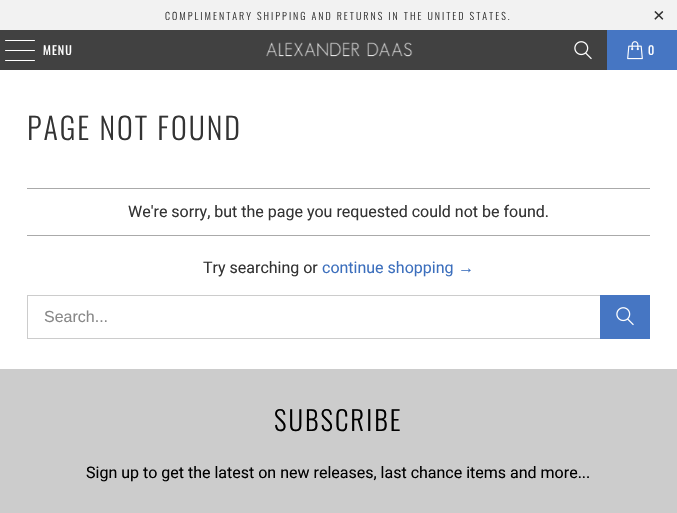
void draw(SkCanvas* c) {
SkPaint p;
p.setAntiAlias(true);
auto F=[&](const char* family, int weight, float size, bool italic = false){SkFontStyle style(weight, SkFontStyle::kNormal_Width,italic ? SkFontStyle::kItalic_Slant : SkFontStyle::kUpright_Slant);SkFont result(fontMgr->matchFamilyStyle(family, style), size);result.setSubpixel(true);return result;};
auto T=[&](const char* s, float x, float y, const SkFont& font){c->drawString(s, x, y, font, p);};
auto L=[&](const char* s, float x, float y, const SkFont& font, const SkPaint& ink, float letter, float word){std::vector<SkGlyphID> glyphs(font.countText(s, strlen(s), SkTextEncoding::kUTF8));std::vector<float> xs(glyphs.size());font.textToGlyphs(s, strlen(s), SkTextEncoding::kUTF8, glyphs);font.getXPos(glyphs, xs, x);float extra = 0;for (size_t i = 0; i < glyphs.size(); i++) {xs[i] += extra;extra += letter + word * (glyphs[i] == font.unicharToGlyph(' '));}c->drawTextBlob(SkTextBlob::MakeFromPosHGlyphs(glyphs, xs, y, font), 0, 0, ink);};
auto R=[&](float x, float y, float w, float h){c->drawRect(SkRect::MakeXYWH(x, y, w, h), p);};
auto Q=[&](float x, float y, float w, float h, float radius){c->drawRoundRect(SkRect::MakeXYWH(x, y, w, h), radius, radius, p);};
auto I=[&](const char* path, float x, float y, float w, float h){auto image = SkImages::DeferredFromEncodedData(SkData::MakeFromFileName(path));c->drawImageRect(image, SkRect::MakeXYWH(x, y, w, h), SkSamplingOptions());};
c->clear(0xffffffff);
p.setColor(0xfff2f2f2);
R(0,0,677,30);
auto f1 = F("Oswald",300,10);
p.setColor(0xff333333);
L("COMPLIMENTARY SHIPPING AND RETURNS IN THE UNITED STATES.",165,20,f1,p,2,0);
auto f2 = F("Liberation Sans",400,20);
L("×",653,22,f2,p,2,0);
p.setColor(0xff414141);
R(0,30,607,40);
p.setColor(0xffffffff);
Q(5,40,30,1,.5);
Q(5,50,30,1,.5);
Q(5,60,30,1,.5);
auto f3 = F("Oswald",400,12);
L("MENU",43,55,f3,p,1,0);
I("1.png",266,42,147,15);
I("2.png",574,41,18,19);
p.setColor(0xff4676c3);
R(607,30,70,40);
I("3.png",627,41,16,19);
p.setColor(0xffffffff);
L("0",648,55,f3,p,1,0);
auto f4 = F("Oswald",300,30);
p.setColor(0xff333333);
L("PAGE NOT FOUND",27,140,f4,p,2,0);
p.setColor(0xffaaaaaa);
R(27,188,623,1);
R(27,235,623,1);
auto f5 = F("Roboto",400,16);
p.setColor(0xff333333);
T("We're sorry, but the page you requested could not be found.",128,217,f5);
T("Try searching or",203,273,f5);
p.setColor(0xff3c6fbd);
T("continue shopping",322,273,f5);
auto f6 = F("Liberation Sans",400,16);
T("→",458,273,f6);
p.setStroke(true);
p.setStrokeWidth(1);
p.setColor(0xffcccccc);
c->drawRect(SkRect::MakeXYWH(27.5,295.5,622,43),p);
p.setStroke(false);
p.setColor(0xff888888);
T("Search...",44,322,f6);
p.setColor(0xff4676c3);
R(600,295,50,44);
I("4.png",616,307,18,19);
p.setColor(0xffcccccc);
R(0,369,677,144);
auto f7 = F("Oswald",300,27);
p.setColor(0xff000000);
L("SUBSCRIBE",274,431,f7,p,2,0);
T("Sign up to get the latest on new releases, last chance items and more...",86,478,f5);
}
